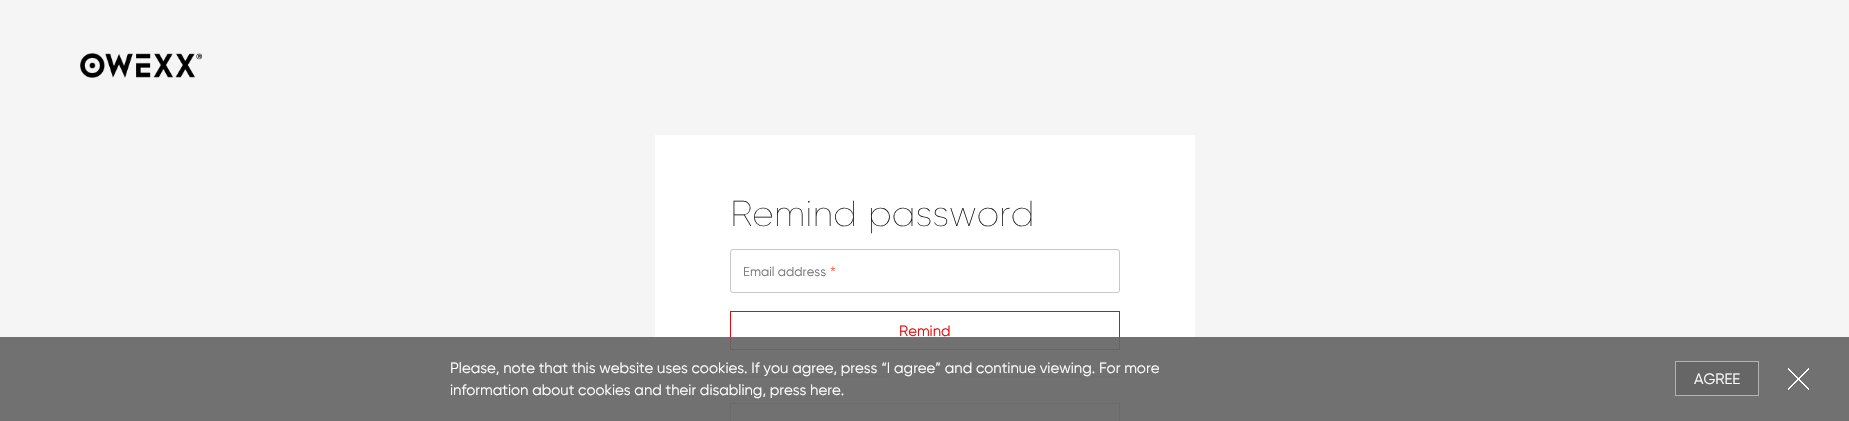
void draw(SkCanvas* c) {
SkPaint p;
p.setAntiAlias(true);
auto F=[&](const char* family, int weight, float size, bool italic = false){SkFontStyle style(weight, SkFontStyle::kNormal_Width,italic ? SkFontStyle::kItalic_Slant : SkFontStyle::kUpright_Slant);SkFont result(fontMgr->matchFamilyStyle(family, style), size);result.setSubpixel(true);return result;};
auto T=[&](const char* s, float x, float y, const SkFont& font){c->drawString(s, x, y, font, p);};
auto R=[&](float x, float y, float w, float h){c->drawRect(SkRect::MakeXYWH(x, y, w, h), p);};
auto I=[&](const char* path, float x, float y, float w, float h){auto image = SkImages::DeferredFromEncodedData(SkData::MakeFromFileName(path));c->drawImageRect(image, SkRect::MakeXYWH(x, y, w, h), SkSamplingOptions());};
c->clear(0xfff5f5f5);
I("1.png",80,53,122,25);
p.setColor(0xffffffff);
R(655,135,540,286);
auto f1 = F("Gilroy",100,36);
p.setColor(0xff181818);
T("Remind password",730,226,f1);
p.setStroke(true);
p.setStrokeWidth(1);
p.setColor(0xffc9c7c7);
c->drawRoundRect(SkRect::MakeXYWH(730.5,249.5,389,43),2.5,2.5,p);
auto f2 = F("Gilroy",400,13);
p.setStroke(false);
p.setColor(0xff78777a);
T("Email address",743,276,f2);
auto f3 = F("Liberation Mono",400,13);
p.setColor(0xffff6347);
T("*",829,276,f3);
p.setStroke(true);
p.setColor(0xffe60a0a);
c->drawRect(SkRect::MakeXYWH(730.5,311.5,389,38),p);
auto f4 = F("Gilroy",400,15);
p.setStroke(false);
T("Remind",899,336,f4);
p.setColor(0xffdedfe0);
R(730,376,390,1);
p.setColor(0xffffffff);
R(888,376,73,1);
p.setStroke(true);
p.setColor(0xff999999);
c->drawRect(SkRect::MakeXYWH(730.5,403.5,389,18),p);
p.setStroke(false);
p.setColor(0xed666666);
R(0,337,1849,84);
p.setColor(0xffffffff);
T("Please, note that this website uses cookies. If you agree, press “I agree” and continue viewing. For more",450,373,f4);
T("information about cookies and their disabling, press here.",450,395,f4);
p.setColor(0xff666666);
c->drawRect(SkRect::MakeXYWH(1675.5,361.5,83,34),p);
p.setStroke(true);
p.setColor(0xffb3b3b3);
c->drawRect(SkRect::MakeXYWH(1675.5,361.5,83,34),p);
p.setStroke(false);
p.setColor(0xffffffff);
T("AGREE",1694,384,f4);
I("2.png",1788,368,21,22);
}
